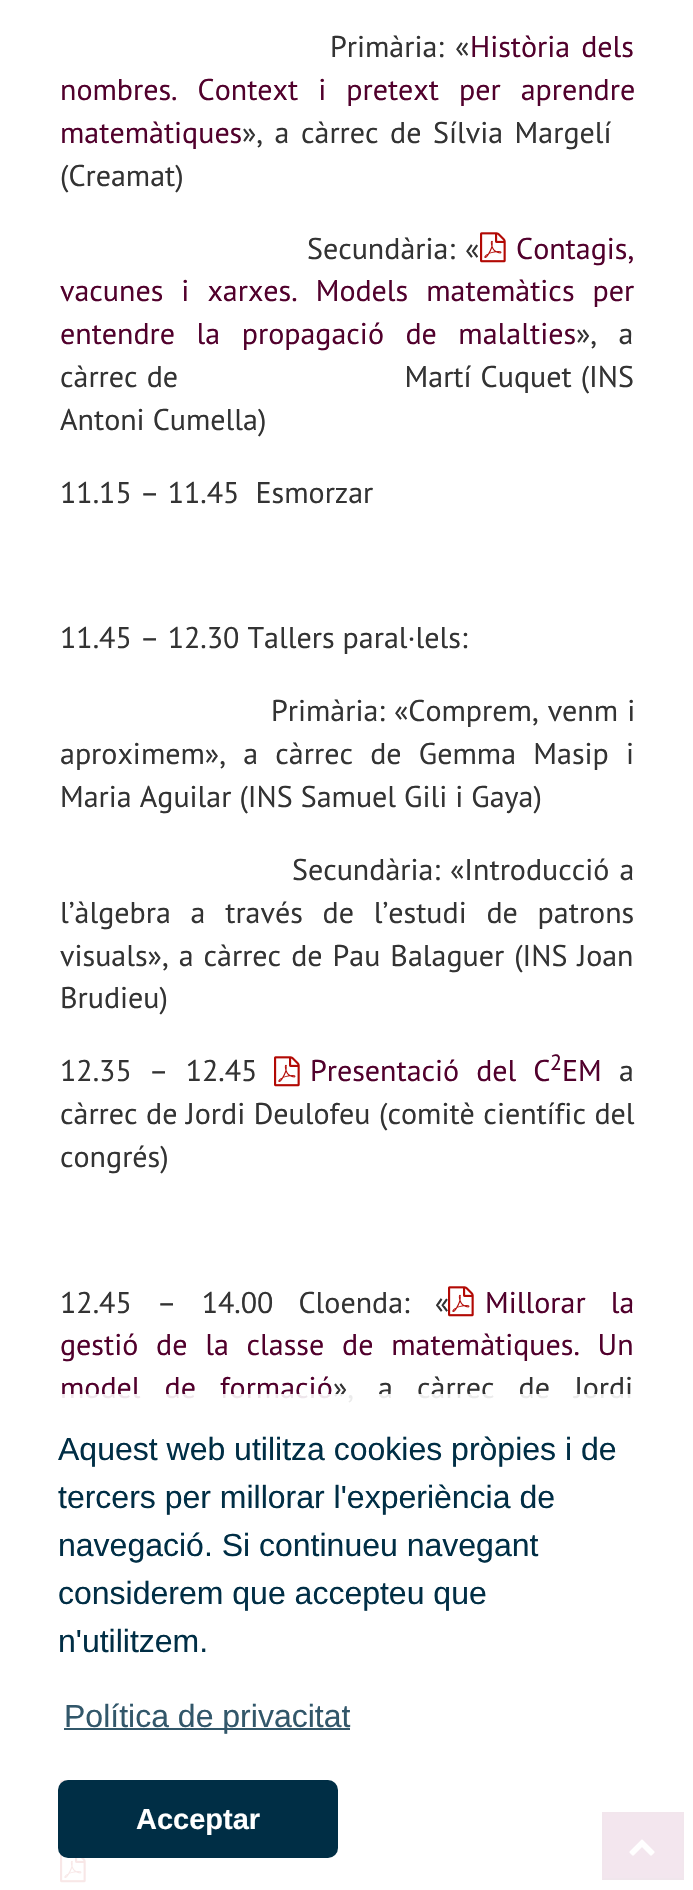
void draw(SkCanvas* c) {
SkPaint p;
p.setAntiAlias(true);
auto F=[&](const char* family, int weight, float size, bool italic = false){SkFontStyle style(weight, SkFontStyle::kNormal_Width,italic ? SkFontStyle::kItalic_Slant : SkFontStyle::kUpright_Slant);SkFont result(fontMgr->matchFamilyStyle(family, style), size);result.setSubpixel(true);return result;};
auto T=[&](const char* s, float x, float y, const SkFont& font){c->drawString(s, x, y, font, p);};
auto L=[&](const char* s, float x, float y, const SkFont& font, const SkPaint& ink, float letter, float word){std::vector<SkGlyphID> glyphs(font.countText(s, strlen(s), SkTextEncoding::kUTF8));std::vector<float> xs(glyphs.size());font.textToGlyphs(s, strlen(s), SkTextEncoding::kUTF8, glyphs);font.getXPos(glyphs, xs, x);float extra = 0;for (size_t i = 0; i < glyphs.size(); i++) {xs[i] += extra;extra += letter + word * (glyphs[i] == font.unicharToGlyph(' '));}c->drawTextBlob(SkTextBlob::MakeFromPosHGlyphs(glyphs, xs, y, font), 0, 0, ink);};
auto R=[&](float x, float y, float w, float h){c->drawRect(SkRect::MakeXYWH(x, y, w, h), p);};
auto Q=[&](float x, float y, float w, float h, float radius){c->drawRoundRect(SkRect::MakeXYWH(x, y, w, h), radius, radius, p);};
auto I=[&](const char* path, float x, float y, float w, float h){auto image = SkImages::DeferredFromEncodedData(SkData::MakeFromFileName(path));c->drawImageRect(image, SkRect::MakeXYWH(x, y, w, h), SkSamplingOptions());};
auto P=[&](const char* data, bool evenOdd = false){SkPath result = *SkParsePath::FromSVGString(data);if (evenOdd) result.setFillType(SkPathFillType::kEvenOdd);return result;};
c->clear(0xffffffff);
auto f1 = F("PT Sans",400,30);
p.setColor(0xff333333);
L("Primària: «",330,57,f1,p,0,3);
p.setColor(0xff51002c);
L("Història dels",470,57,f1,p,0,3);
L("nombres. Context i pretext per aprendre",60,100,f1,p,0,12);
T("matemàtiques",60,143,f1);
p.setColor(0xff333333);
L("», a càrrec de Sílvia Margelí",242,143,f1,p,0,3.5);
T("(Creamat)",60,186,f1);
I("1.png",480,232,26,31);
p.setColor(0xff51002c);
T("Contagis,",516,259,f1);
L("vacunes i xarxes. Models matemàtics per",60,301,f1,p,0,10);
L("entendre la propagació de malalties",60,344,f1,p,0,13.5);
p.setColor(0xff333333);
L("Secundària: «",307,259,f1,p,0,2);
L("», a",576,344,f1,p,0,13.5);
L("càrrec de                         Martí Cuquet (INS",60,387,f1,p,0,1.05);
T("Antoni Cumella)",60,430,f1);
T("11.15 – 11.45  Esmorzar",60,503,f1);
T("11.45 – 12.30 Tallers paral·lels:",60,648,f1);
L("Primària: «Comprem, venm i",271,721,f1,p,0,1);
L("aproximem», a càrrec de Gemma Masip i",60,764,f1,p,0,9.25);
T("Maria Aguilar (INS Samuel Gili i Gaya)",60,807,f1);
L("Secundària: «Introducció a",292,880,f1,p,0,2);
L("l’àlgebra a través de l’estudi de patrons",60,923,f1,p,0,11.75);
L("visuals», a càrrec de Pau Balaguer (INS Joan",60,966,f1,p,0,2);
T("Brudieu)",60,1008,f1);
L("12.35 – 12.45",60,1081,f1,p,0,9);
I("1.png",274,1056,26,31);
p.setColor(0xff51002c);
L("Presentació del C",310,1081,f1,p,0,9);
auto f2 = F("PT Sans",400,22);
T("2",550,1070,f2);
T("EM",562,1081,f1);
p.setColor(0xff333333);
T("a",619,1081,f1);
L("càrrec de Jordi Deulofeu (comitè científic del",60,1124,f1,p,0,.5);
T("congrés)",60,1167,f1);
I("1.png",448,1286,26,31);
p.setColor(0xff51002c);
L("Millorar la",485,1313,f1,p,0,17);
L("gestió de la classe de matemàtiques. Un",60,1355,f1,p,0,9.75);
L("model de formació",60,1398,f1,p,0,16);
p.setColor(0xff333333);
L("12.45 – 14.00 Cloenda: «",60,1313,f1,p,0,17);
L("», a càrrec de Jordi",333,1398,f1,p,0,16);
I("2.png",60,1780,8,4);
I("3.png",60,1854,26,29);
p.setColor(0xff840048);
R(602,1812,82,68);
p.setColor(0xff770041);
c->drawPath(P("M602 1812h82l-2 2h-78z"),p);
p.setColor(0x1a000000);
c->drawPath(P("M684 1812v68l-2-2v-64z"),p);
p.setColor(0x40000000);
c->drawPath(P("M684 1880h-82l2-2h78z"),p);
p.setColor(0x1a000000);
c->drawPath(P("M602 1880v-68l2 2v64z"),p);
I("4.png",629,1839,26,17);
p.setColor(0xe6ffffff);
R(60,1394,624,489);
auto f3 = F("Liberation Sans",400,32);
p.setColor(0xff002e45);
T("Aquest web utilitza cookies pròpies i de",58,1460,f3);
T("tercers per millorar l'experiència de",58,1508,f3);
T("navegació. Si continueu navegant",58,1556,f3);
T("considerem que accepteu que",58,1604,f3);
T("n'utilitzem.",58,1652,f3);
p.setColor(0xcc002e45);
R(64,1728,286,2);
p.setColor(0xff32576a);
T("Política de privacitat",64,1727,f3);
p.setColor(0xff002e45);
Q(58,1780,280,78,10);
auto f4 = F("Liberation Sans",700,29);
p.setColor(0xffffffff);
T("Acceptar",136,1829,f4);
}
